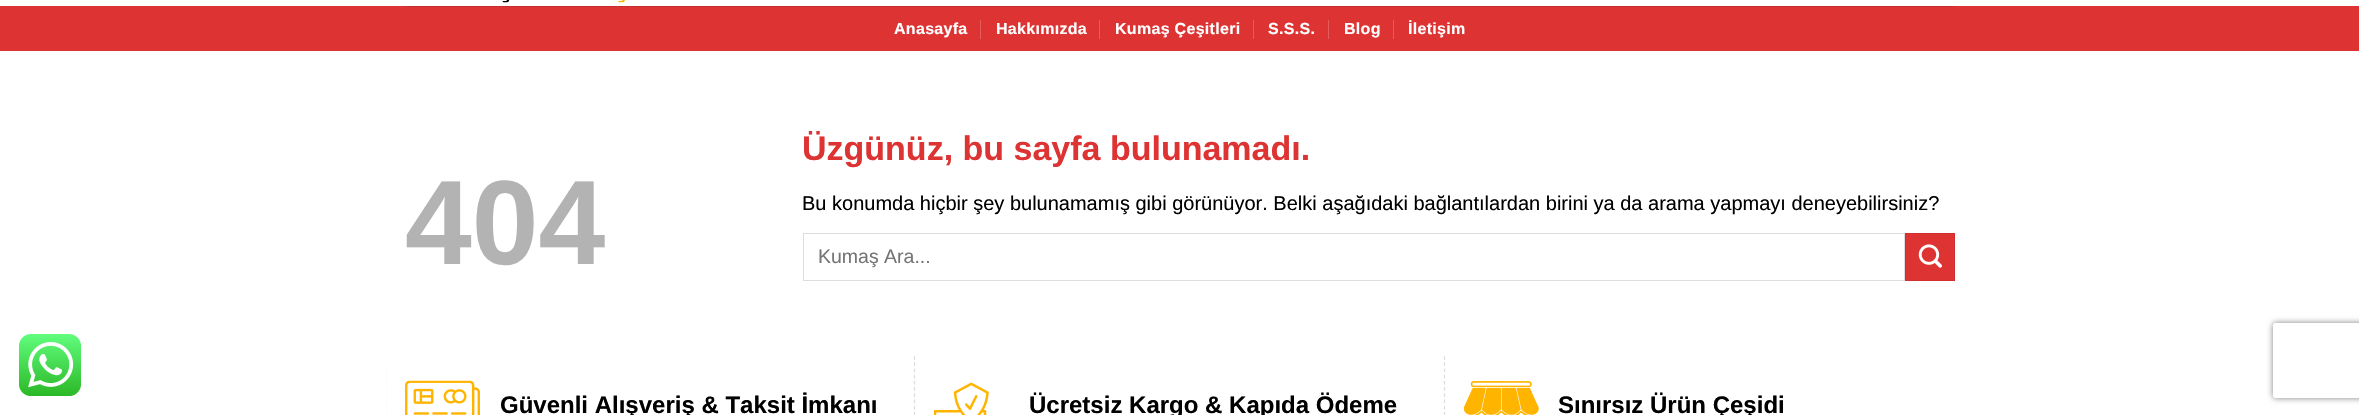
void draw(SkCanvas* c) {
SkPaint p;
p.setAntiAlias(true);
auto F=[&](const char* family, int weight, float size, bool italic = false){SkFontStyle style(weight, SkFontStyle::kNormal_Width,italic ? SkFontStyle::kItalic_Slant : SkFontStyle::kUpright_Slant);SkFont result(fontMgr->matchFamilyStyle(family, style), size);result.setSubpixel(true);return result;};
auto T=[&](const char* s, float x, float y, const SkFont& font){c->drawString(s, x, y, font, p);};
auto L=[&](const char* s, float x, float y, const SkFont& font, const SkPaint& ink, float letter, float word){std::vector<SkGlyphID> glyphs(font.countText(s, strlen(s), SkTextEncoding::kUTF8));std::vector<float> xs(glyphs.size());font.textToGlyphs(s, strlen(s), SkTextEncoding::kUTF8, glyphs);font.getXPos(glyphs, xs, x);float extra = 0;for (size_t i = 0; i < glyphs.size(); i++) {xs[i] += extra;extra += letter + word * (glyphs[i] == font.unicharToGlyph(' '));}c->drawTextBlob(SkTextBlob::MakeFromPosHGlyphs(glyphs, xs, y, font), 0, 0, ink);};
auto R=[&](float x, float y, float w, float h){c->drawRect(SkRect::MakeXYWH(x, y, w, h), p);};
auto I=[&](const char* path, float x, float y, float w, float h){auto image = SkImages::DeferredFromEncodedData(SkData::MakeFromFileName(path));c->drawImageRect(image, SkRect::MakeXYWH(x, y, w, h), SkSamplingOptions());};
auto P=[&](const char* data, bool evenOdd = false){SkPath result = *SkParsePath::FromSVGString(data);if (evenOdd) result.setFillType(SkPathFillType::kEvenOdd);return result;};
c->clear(0xffffffff);
I("1.png",19,334,62,62);
I("2.png",502,0,123,3);
p.setColor(0xffdd3333);
R(0,6,2359,45);
p.setColor(0xffc72e2e);
R(405,6,1550,1);
auto f1 = F("Liberation Sans",700,16);
p.setColor(0xffffffff);
L("Anasayfa",894,34,f1,p,.3,0);
p.setColor(0xffe45c5c);
R(980,20,1,19);
p.setColor(0xffffffff);
L("Hakkımızda",996,34,f1,p,.3,0);
p.setColor(0xffe45c5c);
R(1099,20,1,19);
p.setColor(0xffffffff);
L("Kumaş Çeşitleri",1115,34,f1,p,.3,0);
p.setColor(0xffe45c5c);
R(1253,20,1,19);
p.setColor(0xffffffff);
L("S.S.S.",1268,34,f1,p,.3,0);
p.setColor(0xffe45c5c);
R(1328,20,1,19);
p.setColor(0xffffffff);
L("Blog",1344,34,f1,p,.3,0);
p.setColor(0xffe45c5c);
R(1393,20,1,19);
p.setColor(0xffffffff);
L("İletişim",1408,34,f1,p,.3,0);
auto f2 = F("Liberation Sans",700,120);
p.setColor(0xffb3b3b3);
T("404",405,264,f2);
auto f3 = F("Liberation Sans",700,34);
p.setColor(0xffdd3333);
T("Üzgünüz, bu sayfa bulunamadı.",802,160,f3);
auto f4 = F("Liberation Sans",400,20);
p.setColor(0xff000000);
T("Bu konumda hiçbir şey bulunamamış gibi görünüyor. Belki aşağıdaki bağlantılardan birini ya da arama yapmayı deneyebilirsiniz?",802,210,f4);
p.setStroke(true);
p.setStrokeWidth(1);
p.setColor(0xffdddddd);
c->drawRect(SkRect::MakeXYWH(803.5,233.5,1101,47),p);
auto f5 = F("Liberation Sans",400,19.5);
p.setStroke(false);
p.setColor(0xff757575);
T("Kumaş Ara...",818,263,f5);
p.setColor(0xffdd3333);
c->drawRect(SkRect::MakeXYWH(1905.5,233.5,49,47),p);
p.setStroke(true);
p.setColor(0xffd23030);
c->drawRect(SkRect::MakeXYWH(1905.5,233.5,49,47),p);
I("3.png",1918,244,24,24);
c->save();
c->clipRect(SkRect::MakeXYWH(386,356,1588,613));
p.setStrokeWidth(1.2);
p.setColor(0xffdddddd);
p.setPathEffect(SkDashPathEffect::Make({{3.75f,2.46f}}, 0));
c->drawPath(P("M385.5 356v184"),p);
p.setPathEffect(nullptr);
c->restore();
I("4.png",405,380,75,35);
auto f6 = F("Liberation Sans",700,24);
p.setStroke(false);
p.setColor(0xff000000);
T("Güvenli Alışveriş & Taksit İmkanı",500,413,f6);
p.setStroke(true);
p.setColor(0xffdddddd);
p.setPathEffect(SkDashPathEffect::Make({{3.75f,2.46f}}, 0));
c->drawPath(P("M914.5 356v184"),p);
p.setPathEffect(nullptr);
I("5.png",934,382,55,33);
p.setStroke(false);
p.setColor(0xff000000);
T("Ücretsiz Kargo & Kapıda Ödeme",1029,413,f6);
p.setStroke(true);
p.setColor(0xffdddddd);
p.setPathEffect(SkDashPathEffect::Make({{3.75f,2.46f}}, 0));
c->drawPath(P("M1444.5 356v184"),p);
p.setPathEffect(nullptr);
I("6.png",1464,381,75,34);
p.setStroke(false);
p.setColor(0xff000000);
T("Sınırsız Ürün Çeşidi",1558,413,f6);
c->save();
c->clipPath(P("M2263 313h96v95h-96zm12.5 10h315c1.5 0 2.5 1 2.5 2.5v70c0 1.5-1 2.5-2.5 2.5h-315c-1.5 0-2.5-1-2.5-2.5v-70c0-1.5 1-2.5 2.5-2.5z",true),true);
p.setColor(0xff808080);
p.setMaskFilter(SkMaskFilter::MakeBlur(kNormal_SkBlurStyle, 3));
c->drawRoundRect(SkRect::MakeXYWH(2273,323,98,75),2.5,2.5,p);
p.setMaskFilter(nullptr);
c->restore();
}
